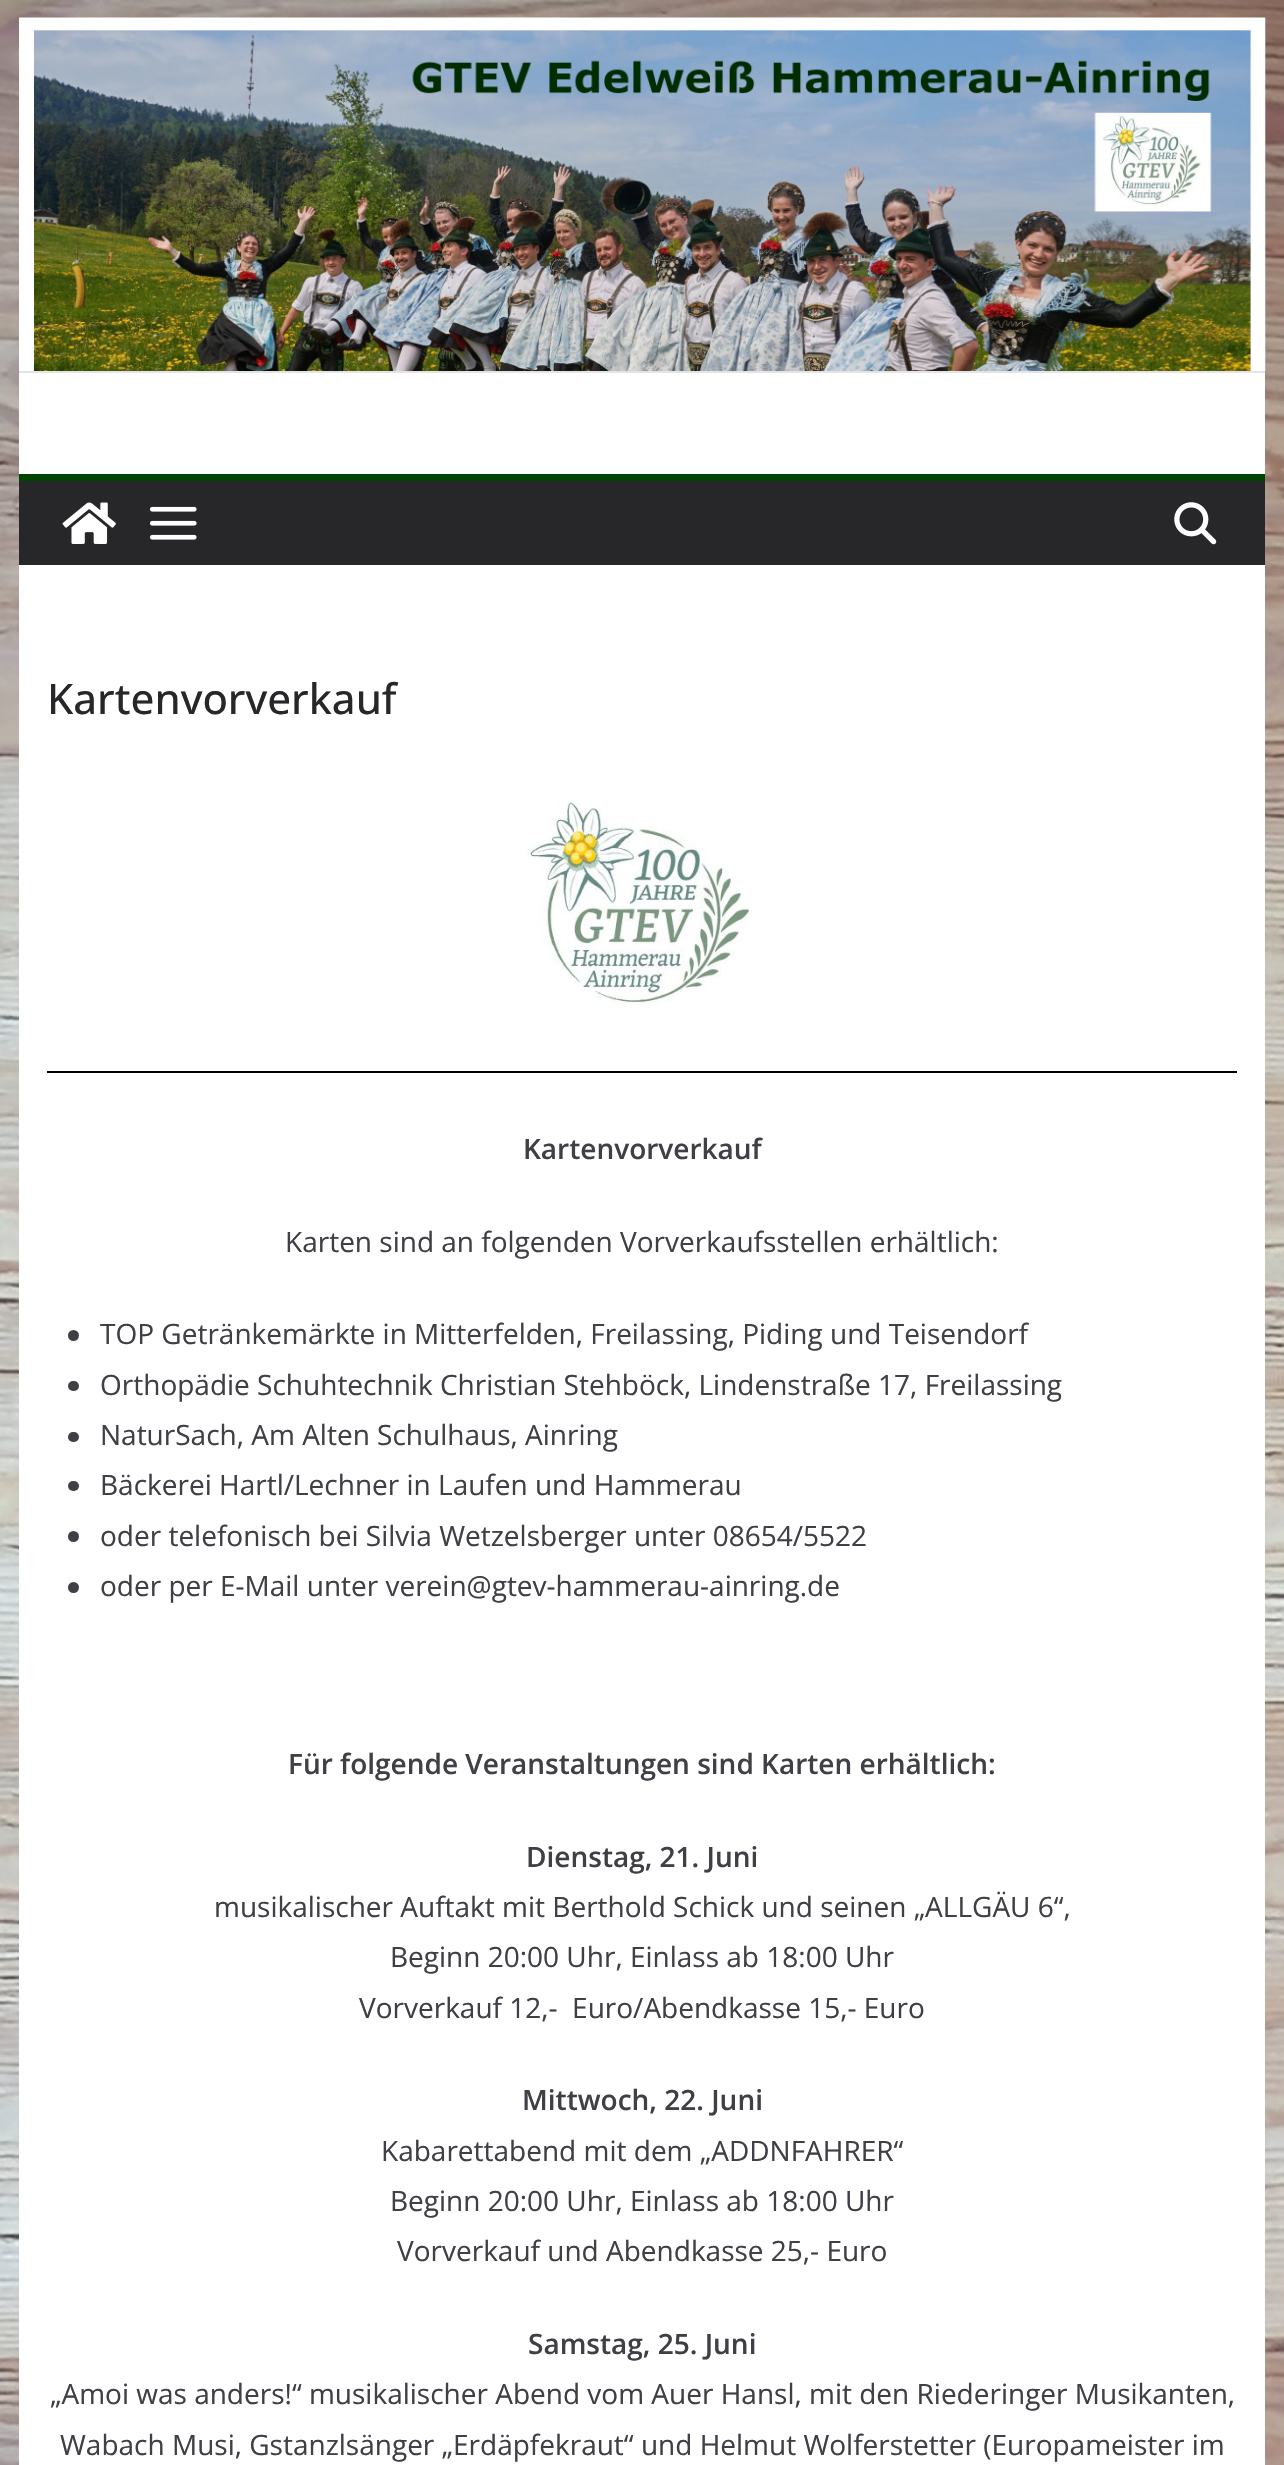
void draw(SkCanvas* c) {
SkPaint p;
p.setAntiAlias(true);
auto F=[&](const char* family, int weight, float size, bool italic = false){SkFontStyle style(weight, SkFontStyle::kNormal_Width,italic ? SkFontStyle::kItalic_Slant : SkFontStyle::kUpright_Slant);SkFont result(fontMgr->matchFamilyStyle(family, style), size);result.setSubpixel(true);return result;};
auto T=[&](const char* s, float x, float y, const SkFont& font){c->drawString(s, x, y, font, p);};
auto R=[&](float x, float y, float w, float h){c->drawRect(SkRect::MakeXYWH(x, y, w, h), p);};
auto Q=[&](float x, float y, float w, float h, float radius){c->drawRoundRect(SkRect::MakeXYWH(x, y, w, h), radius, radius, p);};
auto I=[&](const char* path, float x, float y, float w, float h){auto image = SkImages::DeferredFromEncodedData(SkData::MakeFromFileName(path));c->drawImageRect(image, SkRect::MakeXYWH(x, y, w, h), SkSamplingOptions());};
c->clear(0xffffffff);
I("1.png",0,0,1284,2465);
p.setColor(0xffffffff);
R(19,18,1246,456);
I("2.png",19,17,1247,354);
p.setColor(0xffe4e4e7);
R(19,371,1246,2);
p.setColor(0xff27272a);
R(19,481,1246,84);
p.setColor(0xff004401);
R(19,474,1246,7);
I("3.png",62,502,54,42);
I("4.png",149,506,48,34);
I("5.png",1174,502,43,43);
p.setColor(0xffffffff);
R(19,565,1246,1900);
auto f1 = F("Open Sans",500,42);
p.setColor(0xff27272a);
T("Kartenvorverkauf",47,714,f1);
I("6.png",525,801,224,204);
p.setColor(0xff000000);
R(47,1071,1190,2);
auto f2 = F("Open Sans",600,28);
p.setColor(0xff3f3f46);
T("Kartenvorverkauf",523,1159,f2);
auto f3 = F("Open Sans",400,28);
T("Karten sind an folgenden Vorverkaufsstellen erhältlich:",285,1252,f3);
c->drawCircle(73.5,1335.5,5.5,p);
T("TOP Getränkemärkte in Mitterfelden, Freilassing, Piding und Teisendorf",100,1344,f3);
Q(68,1381,11,10,5);
T("Orthopädie Schuhtechnik Christian Stehböck, Lindenstraße 17, Freilassing",100,1395,f3);
Q(68,1432,11,10,5);
T("NaturSach, Am Alten Schulhaus, Ainring",100,1445,f3);
Q(68,1481,11,10,5);
T("Bäckerei Hartl/Lechner in Laufen und Hammerau",100,1495,f3);
c->drawCircle(73.5,1536.5,5.5,p);
T("oder telefonisch bei Silvia Wetzelsberger unter 08654/5522",100,1546,f3);
c->drawCircle(73.5,1587.5,5.5,p);
T("oder per E-Mail unter verein@gtev-hammerau-ainring.de",100,1596,f3);
T("Für folgende Veranstaltungen sind Karten erhältlich:",288,1774,f2);
T("Dienstag, 21. Juni",526,1867,f2);
T("musikalischer Auftakt mit Berthold Schick und seinen „ALLGÄU 6“,",214,1917,f3);
T("Beginn 20:00 Uhr, Einlass ab 18:00 Uhr",390,1967,f3);
T("Vorverkauf 12,-  Euro/Abendkasse 15,- Euro",359,2018,f3);
T("Mittwoch, 22. Juni",522,2110,f2);
T("Kabarettabend mit dem „ADDNFAHRER“",381,2161,f3);
T("Beginn 20:00 Uhr, Einlass ab 18:00 Uhr",390,2211,f3);
T("Vorverkauf und Abendkasse 25,- Euro",397,2261,f3);
T("Samstag, 25. Juni",528,2354,f2);
T("„Amoi was anders!“ musikalischer Abend vom Auer Hansl, mit den Riederinger Musikanten,",50,2404,f3);
T("Wabach Musi, Gstanzlsänger „Erdäpfekraut“ und Helmut Wolferstetter (Europameister im",60,2455,f3);
}
